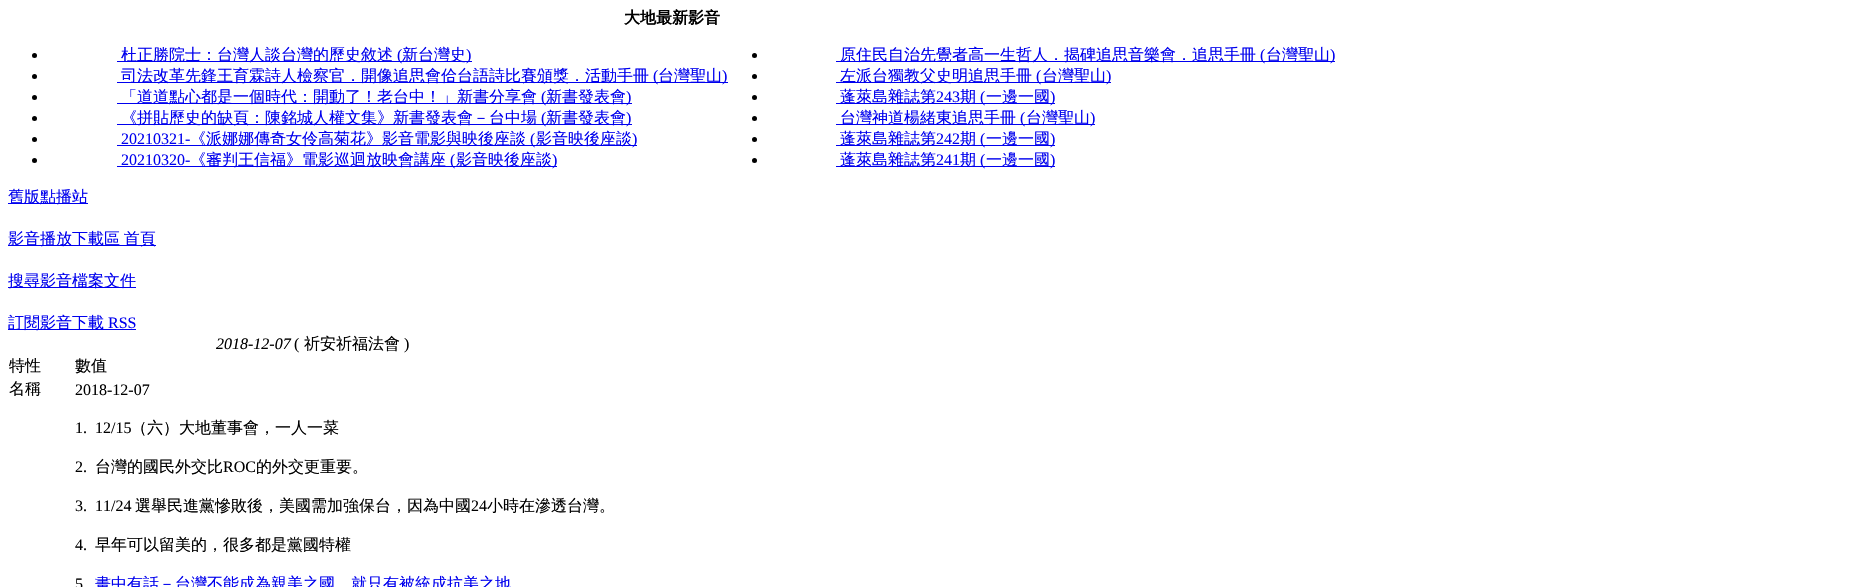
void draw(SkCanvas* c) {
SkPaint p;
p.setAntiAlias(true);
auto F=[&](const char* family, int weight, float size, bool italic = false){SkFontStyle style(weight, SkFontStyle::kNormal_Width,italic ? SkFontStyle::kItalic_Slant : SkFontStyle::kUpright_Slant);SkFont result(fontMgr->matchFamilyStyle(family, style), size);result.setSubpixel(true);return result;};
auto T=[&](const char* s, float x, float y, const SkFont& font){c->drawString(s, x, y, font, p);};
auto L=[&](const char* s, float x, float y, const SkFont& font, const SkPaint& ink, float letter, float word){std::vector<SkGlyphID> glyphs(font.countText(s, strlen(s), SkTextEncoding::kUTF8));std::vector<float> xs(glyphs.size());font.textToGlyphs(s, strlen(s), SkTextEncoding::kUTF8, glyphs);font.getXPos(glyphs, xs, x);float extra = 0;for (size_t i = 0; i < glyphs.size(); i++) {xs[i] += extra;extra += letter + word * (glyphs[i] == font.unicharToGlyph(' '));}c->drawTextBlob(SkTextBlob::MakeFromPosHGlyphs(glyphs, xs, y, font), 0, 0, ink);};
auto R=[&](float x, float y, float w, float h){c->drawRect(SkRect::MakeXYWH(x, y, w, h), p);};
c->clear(0xffffffff);
auto f1 = F("WenQuanYi Zen Hei",700,16);
p.setColor(0xff000000);
T("大地最新影音",624,23,f1);
c->drawCircle(34.5,55.5,2.5,p);
p.setColor(0xff0000ee);
R(117,61,355,1);
auto f2 = F("WenQuanYi Zen Hei",500,16);
T("杜正勝院士：台灣人談台灣的歷史敘述",121,60,f2);
auto f3 = F("Liberation Serif",400,16);
T("(",397,60,f3);
T("新台灣史",402,60,f2);
T(")",466,60,f3);
p.setColor(0xff000000);
c->drawCircle(34.5,76.5,2.5,p);
p.setColor(0xff0000ee);
R(117,82,611,1);
T("司法改革先鋒王育霖詩人檢察官．開像追思會佮台語詩比賽頒獎．活動手冊",121,81,f2);
T("(",653,81,f3);
T("台灣聖山",658,81,f2);
T(")",722,81,f3);
p.setColor(0xff000000);
c->drawCircle(34.5,97.5,2.5,p);
p.setColor(0xff0000ee);
R(117,103,515,1);
T("「道道點心都是一個時代：開動了！老台中！」新書分享會",121,102,f2);
T("(",541,102,f3);
T("新書發表會",546,102,f2);
T(")",626,102,f3);
p.setColor(0xff000000);
c->drawCircle(34.5,118.5,2.5,p);
p.setColor(0xff0000ee);
R(117,124,515,1);
T("《拼貼歷史的缺頁：陳銘城人權文集》新書發表會－台中場",121,123,f2);
T("(",541,123,f3);
T("新書發表會",546,123,f2);
T(")",626,123,f3);
p.setColor(0xff000000);
c->drawCircle(34.5,139.5,2.5,p);
p.setColor(0xff0000ee);
T("20210321-",121,144,f3);
R(117,145,520,1);
T("《派娜娜傳奇女伶高菊花》影音電影與映後座談",190,144,f2);
T("(",530,144,f3);
T("影音映後座談",536,144,f2);
T(")",632,144,f3);
p.setColor(0xff000000);
c->drawCircle(34.5,160.5,2.5,p);
p.setColor(0xff0000ee);
T("20210320-",121,165,f3);
R(117,166,440,1);
T("《審判王信福》電影巡迴放映會講座",190,165,f2);
T("(",450,165,f3);
T("影音映後座談",456,165,f2);
T(")",552,165,f3);
p.setColor(0xff000000);
c->drawCircle(754.5,55.5,2.5,p);
p.setColor(0xff0000ee);
R(836,61,499,1);
T("原住民自治先覺者高一生哲人．揭碑追思音樂會．追思手冊",840,60,f2);
T("(",1260,60,f3);
T("台灣聖山",1266,60,f2);
T(")",1330,60,f3);
p.setColor(0xff000000);
c->drawCircle(754.5,76.5,2.5,p);
p.setColor(0xff0000ee);
R(836,82,275,1);
T("左派台獨教父史明追思手冊",840,81,f2);
T("(",1036,81,f3);
T("台灣聖山",1042,81,f2);
T(")",1106,81,f3);
p.setColor(0xff000000);
c->drawCircle(754.5,97.5,2.5,p);
p.setColor(0xff0000ee);
R(836,103,219,1);
T("蓬萊島雜誌第",840,102,f2);
T("243",936,102,f3);
T("期",960,102,f2);
T("(",980,102,f3);
T("一邊一國",986,102,f2);
T(")",1050,102,f3);
p.setColor(0xff000000);
c->drawCircle(754.5,118.5,2.5,p);
p.setColor(0xff0000ee);
R(836,124,259,1);
T("台灣神道楊緒東追思手冊",840,123,f2);
T("(",1020,123,f3);
T("台灣聖山",1026,123,f2);
T(")",1090,123,f3);
p.setColor(0xff000000);
c->drawCircle(754.5,139.5,2.5,p);
p.setColor(0xff0000ee);
R(836,145,219,1);
T("蓬萊島雜誌第",840,144,f2);
T("242",936,144,f3);
T("期",960,144,f2);
T("(",980,144,f3);
T("一邊一國",986,144,f2);
T(")",1050,144,f3);
p.setColor(0xff000000);
c->drawCircle(754.5,160.5,2.5,p);
p.setColor(0xff0000ee);
R(836,166,219,1);
T("蓬萊島雜誌第",840,165,f2);
T("241",936,165,f3);
T("期",960,165,f2);
T("(",980,165,f3);
T("一邊一國",986,165,f2);
T(")",1050,165,f3);
R(8,203,80,1);
T("舊版點播站",8,202,f2);
R(8,245,148,1);
L("影音播放下載區 首頁",8,244,f2,p,0,-1);
R(8,287,128,1);
T("搜尋影音檔案文件",8,286,f2);
R(8,329,128,1);
T("訂閱影音下載",8,328,f2);
T("RSS",108,328,f3);
auto f4 = F("Liberation Serif",400,16,true);
p.setColor(0xff000000);
T("2018-12-07",216,349,f4);
T("(",294,349,f3);
T("祈安祈福法會",304,349,f2);
T(")",404,349,f3);
T("特性",9,371,f2);
T("數值",75,371,f2);
T("名稱",9,394,f2);
T("2018-12-07",75,395,f3);
T("1.  12/15",75,433,f3);
T("（六）大地董事會，一人一菜",131,433,f2);
T("2.",75,472,f3);
T("台灣的國民外交比",95,472,f2);
T("ROC",223,472,f3);
T("的外交更重要。",256,472,f2);
T("3.  11/24",75,511,f3);
T("選舉民進黨慘敗後，美國需加強保台，因為中國",135,511,f2);
T("24",471,511,f3);
T("小時在滲透台灣。",487,511,f2);
T("4.",75,550,f3);
T("早年可以留美的，很多都是黨國特權",95,550,f2);
T("5",75,589,f3);
p.setColor(0xff0000ee);
T("畫中有話－台灣不能成為親美之國，就只有被統成抗美之地",95,589,f2);
}
